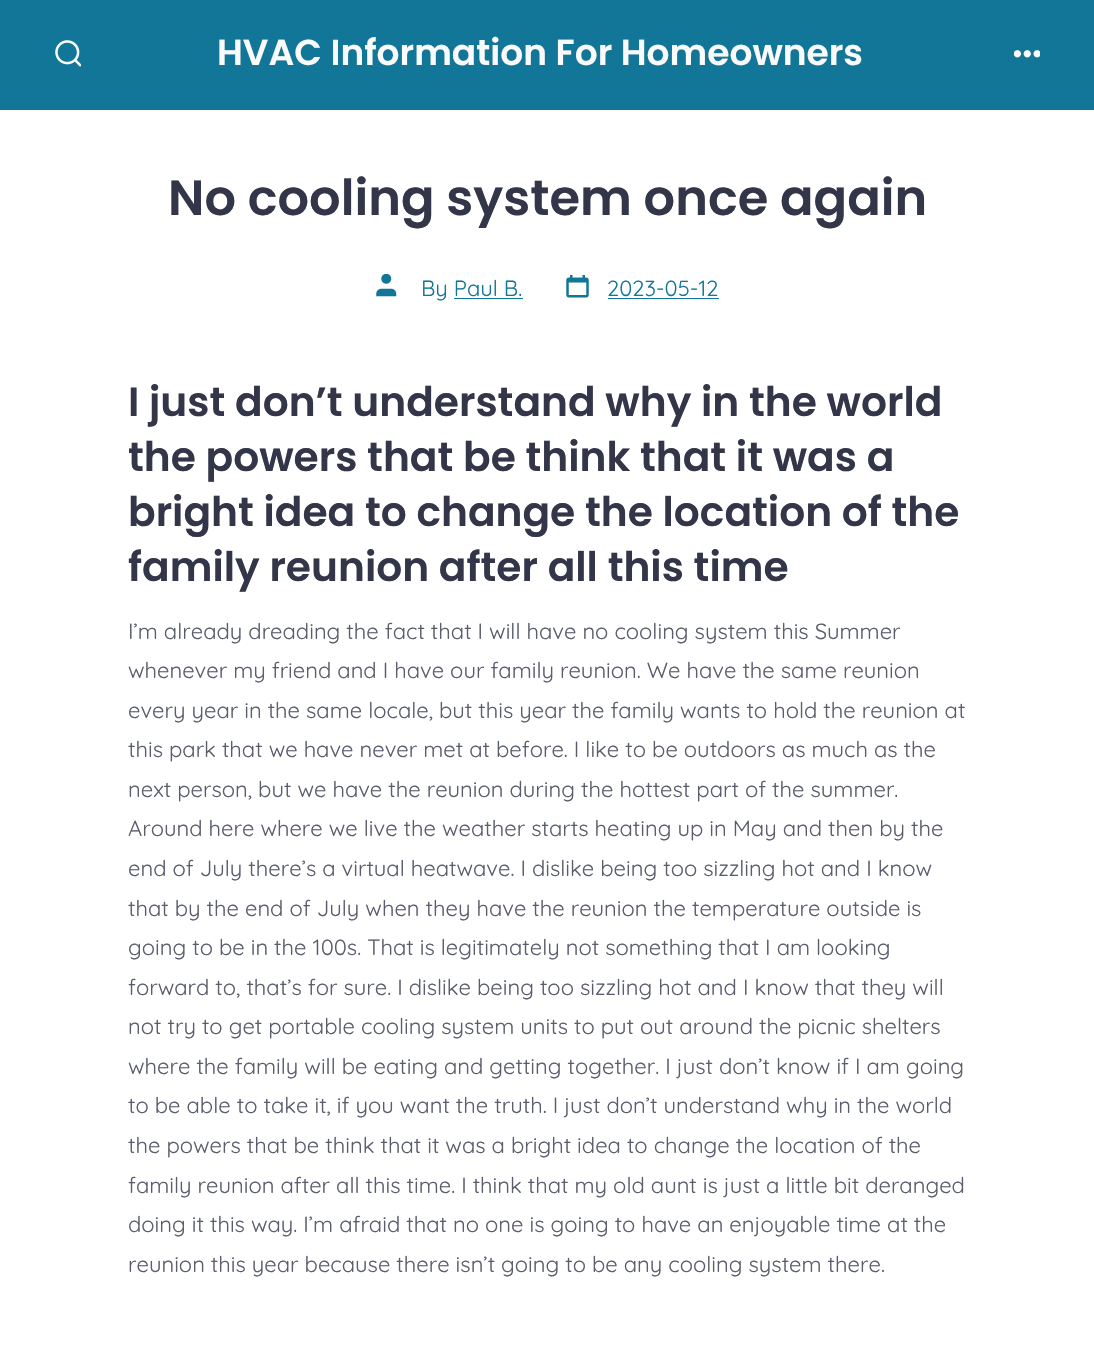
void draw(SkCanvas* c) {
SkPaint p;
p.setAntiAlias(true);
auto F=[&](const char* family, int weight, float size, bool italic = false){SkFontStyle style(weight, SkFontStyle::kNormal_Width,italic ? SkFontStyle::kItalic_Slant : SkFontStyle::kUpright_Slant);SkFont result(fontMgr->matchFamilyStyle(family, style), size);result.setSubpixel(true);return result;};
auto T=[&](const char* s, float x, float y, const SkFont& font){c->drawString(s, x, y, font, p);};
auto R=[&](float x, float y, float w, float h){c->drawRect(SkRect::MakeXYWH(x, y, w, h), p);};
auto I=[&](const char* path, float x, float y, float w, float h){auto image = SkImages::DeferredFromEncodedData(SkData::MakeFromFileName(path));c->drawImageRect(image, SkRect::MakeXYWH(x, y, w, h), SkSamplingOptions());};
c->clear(0xffffffff);
p.setColor(0xff117697);
R(0,0,1094,110);
I("1.png",55,40,26,27);
auto f1 = F("Poppins",600,36);
p.setColor(0xfffafafa);
T("HVAC Information For Homeowners",217,65,f1);
I("2.png",1014,50,26,8);
auto f2 = F("Poppins",600,49.5);
p.setColor(0xff323648);
T("No cooling system once again",168,215,f2);
I("3.png",376,274,21,23);
auto f3 = F("Quicksand",400,22);
p.setColor(0xff117697);
T("By Paul B.",421,296,f3);
R(454,298,69,1);
I("4.png",566,275,23,23);
T("2023-05-12",607,296,f3);
R(608,298,111,1);
auto f4 = F("Poppins",600,40.75);
p.setColor(0xff323648);
T("I just don’t understand why in the world",128,416,f4);
T("the powers that be think that it was a",128,471,f4);
T("bright idea to change the location of the",128,526,f4);
T("family reunion after all this time",128,581,f4);
p.setColor(0xff5a5d6c);
T("I’m already dreading the fact that I will have no cooling system this Summer",128,639,f3);
T("whenever my friend and I have our family reunion. We have the same reunion",128,678,f3);
T("every year in the same locale, but this year the family wants to hold the reunion at",128,718,f3);
T("this park that we have never met at before. I like to be outdoors as much as the",128,757,f3);
T("next person, but we have the reunion during the hottest part of the summer.",128,797,f3);
T("Around here where we live the weather starts heating up in May and then by the",128,836,f3);
T("end of July there’s a virtual heatwave. I dislike being too sizzling hot and I know",128,876,f3);
T("that by the end of July when they have the reunion the temperature outside is",128,916,f3);
T("going to be in the 100s. That is legitimately not something that I am looking",128,955,f3);
T("forward to, that’s for sure. I dislike being too sizzling hot and I know that they will",128,995,f3);
T("not try to get portable cooling system units to put out around the picnic shelters",128,1034,f3);
T("where the family will be eating and getting together. I just don’t know if I am going",128,1074,f3);
T("to be able to take it, if you want the truth. I just don’t understand why in the world",128,1113,f3);
T("the powers that be think that it was a bright idea to change the location of the",128,1153,f3);
T("family reunion after all this time. I think that my old aunt is just a little bit deranged",128,1193,f3);
T("doing it this way. I’m afraid that no one is going to have an enjoyable time at the",128,1232,f3);
T("reunion this year because there isn’t going to be any cooling system there.",128,1272,f3);
}
